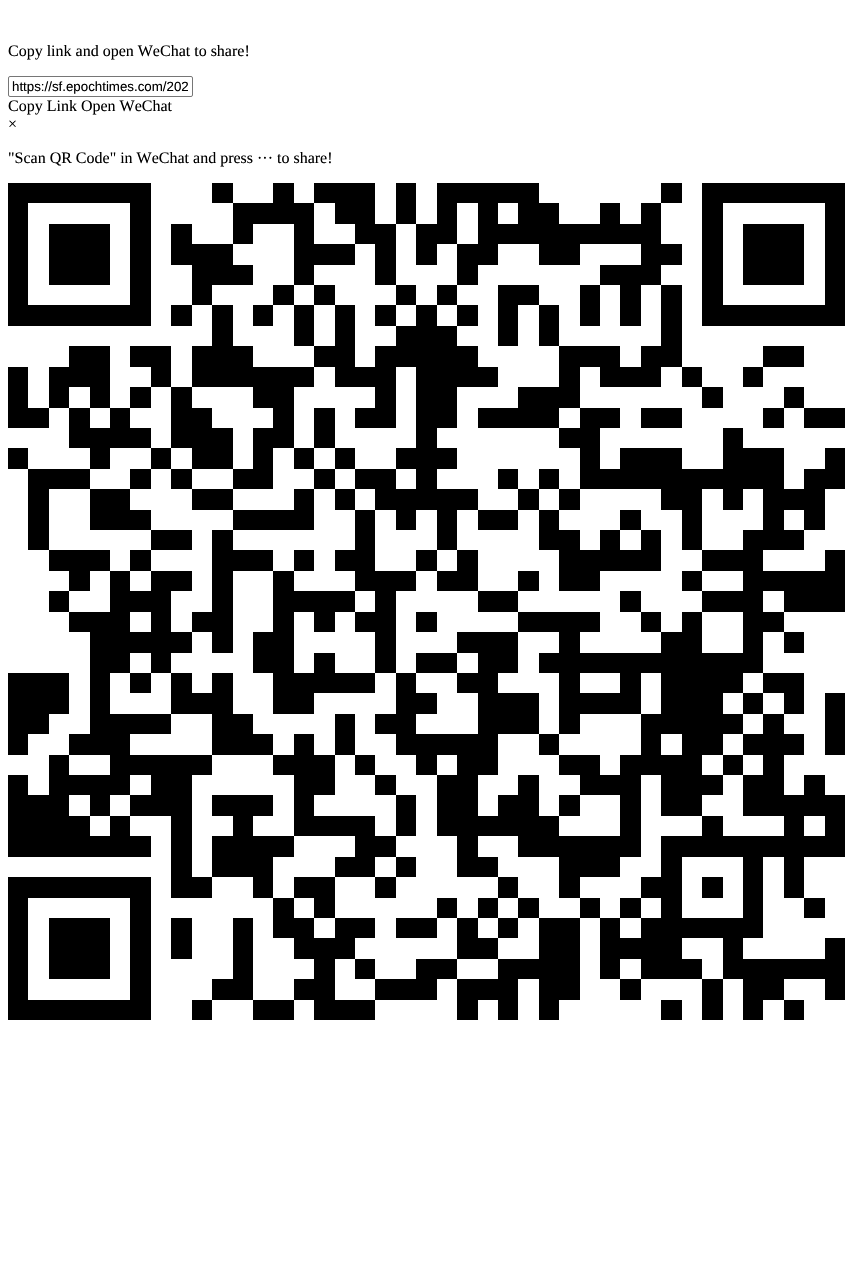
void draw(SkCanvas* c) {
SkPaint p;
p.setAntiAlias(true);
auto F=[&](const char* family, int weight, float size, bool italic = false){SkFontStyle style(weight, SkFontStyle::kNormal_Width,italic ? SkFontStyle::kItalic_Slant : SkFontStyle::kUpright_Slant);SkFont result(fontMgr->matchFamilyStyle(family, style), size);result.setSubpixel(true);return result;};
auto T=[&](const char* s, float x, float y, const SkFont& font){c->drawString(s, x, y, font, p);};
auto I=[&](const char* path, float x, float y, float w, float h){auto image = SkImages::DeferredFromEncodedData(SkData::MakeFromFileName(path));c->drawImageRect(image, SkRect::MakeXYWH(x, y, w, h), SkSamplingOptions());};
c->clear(0xffffffff);
auto f1 = F("Liberation Serif",400,16);
p.setColor(0xff000000);
T("Copy link and open WeChat to share!",8,56,f1);
p.setStroke(true);
p.setStrokeWidth(1);
p.setColor(0xff767676);
c->drawRoundRect(SkRect::MakeXYWH(8.5,76.5,184,20),1.5,1.5,p);
auto f2 = F("Liberation Sans",400,13.3);
p.setStroke(false);
p.setColor(0xff000000);
T("https://sf.epochtimes.com/202",12,91,f2);
T("Copy Link Open WeChat",8,111,f1);
T("×",8,129,f1);
T("\"Scan QR Code\" in WeChat and press ··· to share!",8,163,f1);
I("1.png",8,183,837,837);
}
